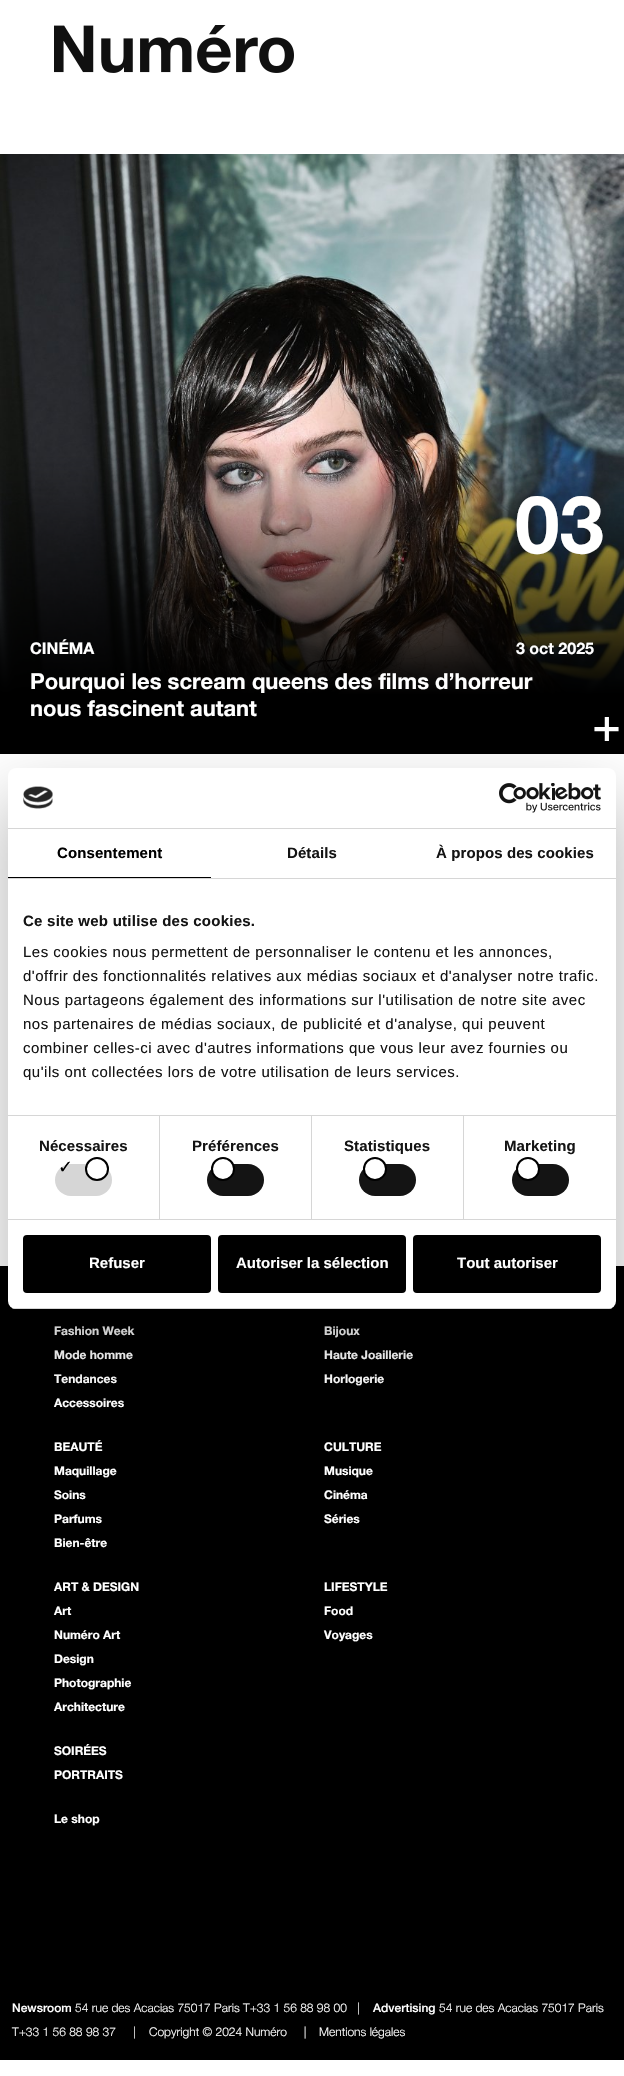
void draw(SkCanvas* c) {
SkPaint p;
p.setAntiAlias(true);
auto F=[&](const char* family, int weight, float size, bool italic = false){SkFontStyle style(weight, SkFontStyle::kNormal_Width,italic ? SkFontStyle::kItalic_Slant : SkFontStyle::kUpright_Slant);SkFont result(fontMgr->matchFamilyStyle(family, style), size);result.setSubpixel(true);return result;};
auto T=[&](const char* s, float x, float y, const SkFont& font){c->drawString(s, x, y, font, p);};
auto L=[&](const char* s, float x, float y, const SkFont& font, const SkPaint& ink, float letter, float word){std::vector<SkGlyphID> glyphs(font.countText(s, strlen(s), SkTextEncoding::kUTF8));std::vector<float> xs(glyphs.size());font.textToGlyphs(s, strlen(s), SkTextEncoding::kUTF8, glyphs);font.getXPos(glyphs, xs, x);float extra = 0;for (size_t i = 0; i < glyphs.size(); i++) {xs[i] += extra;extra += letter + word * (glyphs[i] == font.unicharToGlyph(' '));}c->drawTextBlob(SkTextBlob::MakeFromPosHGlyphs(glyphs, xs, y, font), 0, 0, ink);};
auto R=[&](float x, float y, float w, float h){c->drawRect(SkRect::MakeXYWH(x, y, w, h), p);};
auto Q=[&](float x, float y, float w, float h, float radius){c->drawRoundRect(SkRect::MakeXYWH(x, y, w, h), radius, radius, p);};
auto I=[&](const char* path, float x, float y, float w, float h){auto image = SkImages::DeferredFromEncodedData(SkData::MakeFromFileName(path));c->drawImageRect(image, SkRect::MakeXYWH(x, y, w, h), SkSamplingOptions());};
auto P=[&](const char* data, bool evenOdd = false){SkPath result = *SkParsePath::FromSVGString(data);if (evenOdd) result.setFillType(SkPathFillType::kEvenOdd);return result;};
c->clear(0xffffffff);
I("1.png",54,25,240,48);
I("2.png",0,154,624,600);
auto f1 = F("Helvetica Neue",700,80);
p.setColor(0xffffffff);
T("03",515,553,f1);
auto f2 = F("Helvetica Neue",700,16);
T("CINÉMA",30,654,f2);
T("3 oct 2025",516,654,f2);
auto f3 = F("Helvetica Neue",700,22);
T("Pourquoi les scream queens des films d’horreur",30,689,f3);
T("nous fascinent autant",30,716,f3);
I("3.png",594,717,25,24);
p.setColor(0xff000000);
R(0,1266,624,794);
auto f4 = F("Helvetica Neue",700,12);
p.setColor(0xffffffff);
T("Fashion Week",54,1335,f4);
T("Mode homme",54,1359,f4);
T("Tendances",54,1383,f4);
T("Accessoires",54,1407,f4);
T("Bijoux",324,1335,f4);
T("Haute Joaillerie",324,1359,f4);
T("Horlogerie",324,1383,f4);
T("BEAUTÉ",54,1451,f4);
T("Maquillage",54,1475,f4);
T("Soins",54,1499,f4);
T("Parfums",54,1523,f4);
T("Bien-être",54,1547,f4);
T("CULTURE",324,1451,f4);
T("Musique",324,1475,f4);
T("Cinéma",324,1499,f4);
T("Séries",324,1523,f4);
T("ART & DESIGN",54,1591,f4);
T("Art",54,1615,f4);
T("Numéro Art",54,1639,f4);
T("Design",54,1663,f4);
T("Photographie",54,1687,f4);
T("Architecture",54,1711,f4);
T("LIFESTYLE",324,1591,f4);
T("Food",324,1615,f4);
T("Voyages",324,1639,f4);
T("SOIRÉES",54,1755,f4);
T("PORTRAITS",54,1779,f4);
T("Le shop",54,1823,f4);
auto f5 = F("Helvetica Neue",500,12);
T("Newsroom",12,2012,f5);
auto f6 = F("Helvetica Neue",300,12);
T("54 rue des Acacias 75017 Paris T+33 1 56 88 98 00",75,2012,f6);
T("|",357,2012,f6);
T("Advertising",373,2012,f5);
T("54 rue des Acacias 75017 Paris",439,2012,f6);
T("T+33 1 56 88 98 37",12,2036,f6);
T("|    Copyright © 2024 Numéro     |",133,2036,f6);
T("Mentions légales",319,2036,f6);
p.setColor(0x4d000000);
p.setMaskFilter(SkMaskFilter::MakeBlur(kNormal_SkBlurStyle, 34));
c->drawRoundRect(SkRect::MakeXYWH(8,800,608,541),8,8,p);
p.setMaskFilter(nullptr);
p.setColor(0xffffffff);
Q(8,768,608,541,8);
p.setColor(0xffd6d6d6);
R(8,828,608,1);
I("4.png",23,786,30,23);
I("5.png",499,783,102,30);
R(8,878,608,1);
p.setColor(0xff000000);
R(8,877,203,1);
auto f7 = F("Liberation Sans",700,15);
L("Consentement",57,858,f7,p,.1,0);
p.setColor(0xff141414);
L("Détails",287,858,f7,p,.1,0);
L("À propos des cookies",436,858,f7,p,.1,0);
p.setColor(0xffd6d6d6);
R(8,1115,608,1);
p.setColor(0xff141414);
L("Ce site web utilise des cookies.",23,926,f7,p,.25,0);
auto f8 = F("Liberation Sans",400,15);
L("Les cookies nous permettent de personnaliser le contenu et les annonces,",23,957,f8,p,.5,0);
L("d'offrir des fonctionnalités relatives aux médias sociaux et d'analyser notre trafic.",23,981,f8,p,.5,0);
L("Nous partageons également des informations sur l'utilisation de notre site avec",23,1005,f8,p,.5,0);
L("nos partenaires de médias sociaux, de publicité et d'analyse, qui peuvent",23,1029,f8,p,.5,0);
L("combiner celles-ci avec d'autres informations que vous leur avez fournies ou",23,1053,f8,p,.5,0);
L("qu'ils ont collectées lors de votre utilisation de leurs services.",23,1077,f8,p,.5,0);
p.setColor(0xffd6d6d6);
R(8,1219,608,1);
R(159,1116,1,103);
p.setColor(0xff141414);
L("Nécessaires",39,1151,f7,p,.1,0);
p.setColor(0xffd6d6d6);
Q(55,1164,57,32,16);
auto f9 = F("DejaVu Sans",400,18);
p.setColor(0xff000000);
L("✓",58,1173,f9,p,.1,0);
p.setColor(0xffffffff);
c->drawCircle(97,1169,11,p);
p.setStroke(true);
p.setStrokeWidth(2);
p.setColor(0xff000000);
c->drawCircle(97,1169,11,p);
p.setStroke(false);
p.setColor(0xffd6d6d6);
R(311,1116,1,103);
p.setColor(0xff141414);
L("Préférences",192,1151,f7,p,.1,0);
Q(207,1164,57,32,16);
p.setColor(0xffffffff);
c->drawCircle(223,1169,11,p);
p.setStroke(true);
p.setColor(0xff000000);
c->drawCircle(223,1169,11,p);
p.setStroke(false);
p.setColor(0xffd6d6d6);
R(463,1116,1,103);
p.setColor(0xff141414);
L("Statistiques",344,1151,f7,p,.1,0);
Q(359,1164,57,32,16);
p.setColor(0xffffffff);
c->drawCircle(375,1169,11,p);
p.setStroke(true);
p.setColor(0xff000000);
c->drawCircle(375,1169,11,p);
p.setStroke(false);
p.setColor(0xff141414);
L("Marketing",504,1151,f7,p,.1,0);
Q(512,1164,57,32,16);
p.setColor(0xffffffff);
c->drawCircle(528,1169,11,p);
p.setStroke(true);
p.setColor(0xff000000);
c->drawCircle(528,1169,11,p);
c->save();
c->clipPath(P("M16 768h592c4.5 0 8 3.5 8 8v525c0 4.5-3.5 8-8 8h-592c-4.5 0-8-3.5-8-8v-525c0-4.5 3.5-8 8-8z"),true);
p.setStroke(false);
p.setColor(0xffd6d6d6);
R(8,1308,608,1);
c->restore();
p.setColor(0xff000000);
c->drawRoundRect(SkRect::MakeXYWH(24,1236,186,56),3,3,p);
p.setStroke(true);
c->drawRoundRect(SkRect::MakeXYWH(24,1236,186,56),3,3,p);
p.setStroke(false);
p.setColor(0xffffffff);
T("Refuser",89,1268,f7);
p.setColor(0xff000000);
c->drawRoundRect(SkRect::MakeXYWH(219,1236,186,56),3,3,p);
p.setStroke(true);
c->drawRoundRect(SkRect::MakeXYWH(219,1236,186,56),3,3,p);
p.setStroke(false);
p.setColor(0xffffffff);
T("Autoriser la sélection",236,1268,f7);
p.setColor(0xff000000);
c->drawRoundRect(SkRect::MakeXYWH(414,1236,186,56),3,3,p);
p.setStroke(true);
c->drawRoundRect(SkRect::MakeXYWH(414,1236,186,56),3,3,p);
p.setStroke(false);
p.setColor(0xffffffff);
T("Tout autoriser",457,1268,f7);
}
